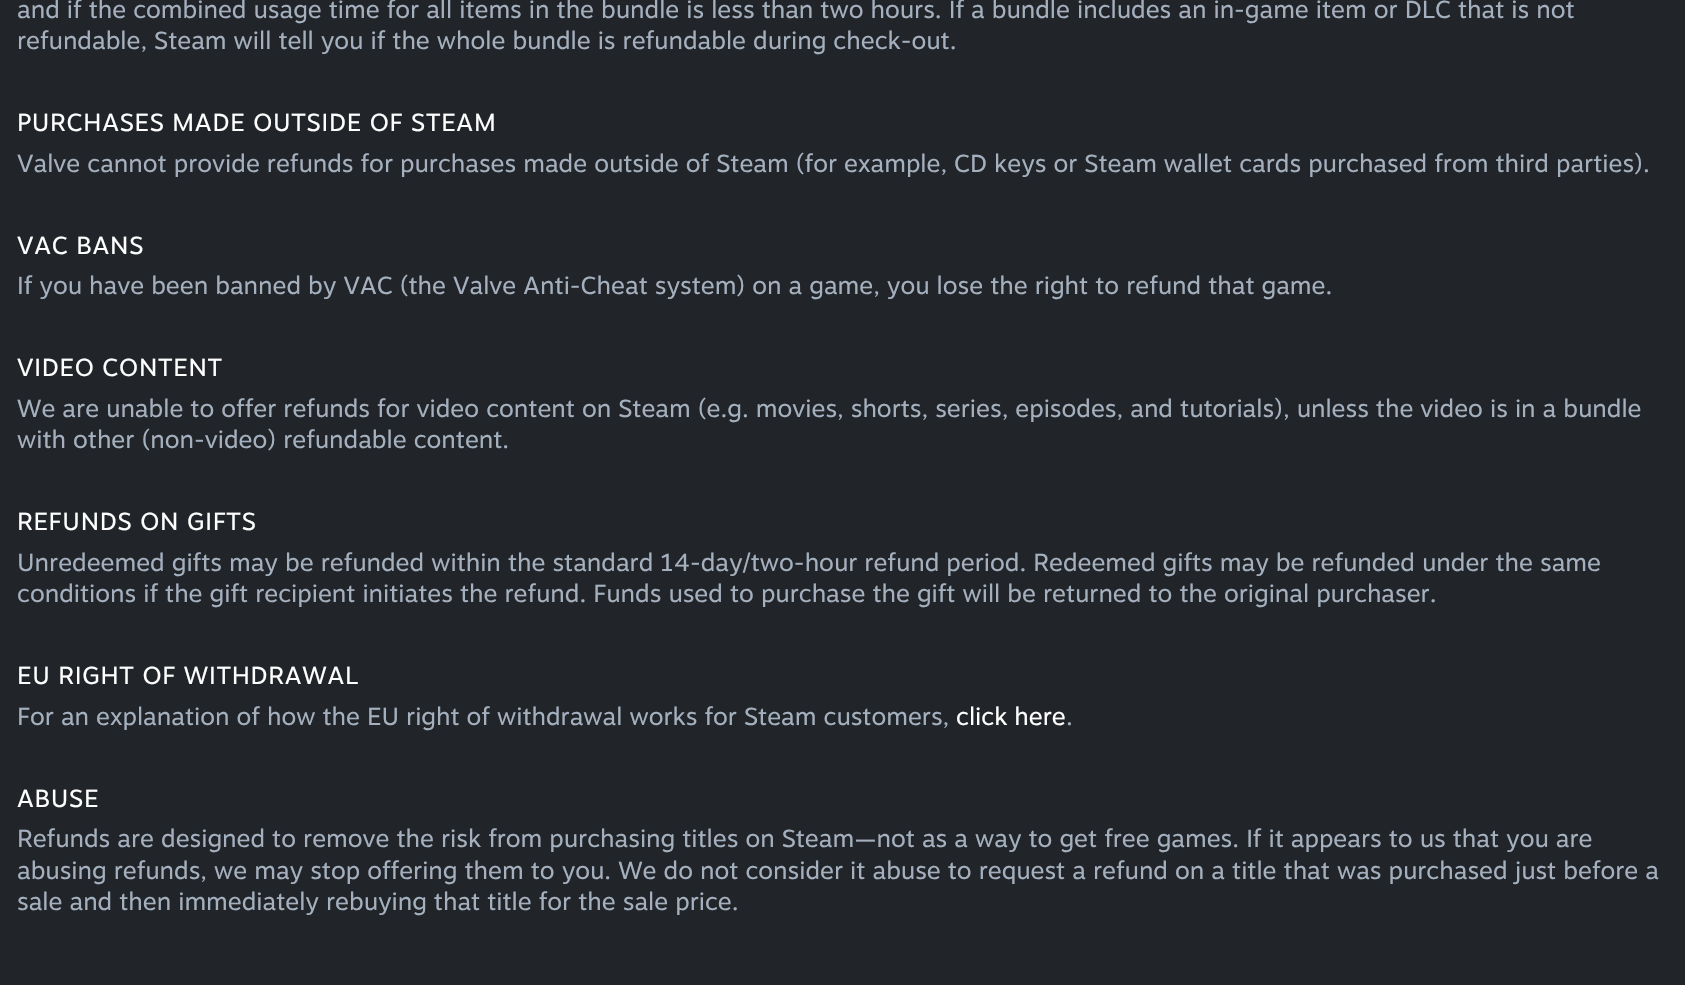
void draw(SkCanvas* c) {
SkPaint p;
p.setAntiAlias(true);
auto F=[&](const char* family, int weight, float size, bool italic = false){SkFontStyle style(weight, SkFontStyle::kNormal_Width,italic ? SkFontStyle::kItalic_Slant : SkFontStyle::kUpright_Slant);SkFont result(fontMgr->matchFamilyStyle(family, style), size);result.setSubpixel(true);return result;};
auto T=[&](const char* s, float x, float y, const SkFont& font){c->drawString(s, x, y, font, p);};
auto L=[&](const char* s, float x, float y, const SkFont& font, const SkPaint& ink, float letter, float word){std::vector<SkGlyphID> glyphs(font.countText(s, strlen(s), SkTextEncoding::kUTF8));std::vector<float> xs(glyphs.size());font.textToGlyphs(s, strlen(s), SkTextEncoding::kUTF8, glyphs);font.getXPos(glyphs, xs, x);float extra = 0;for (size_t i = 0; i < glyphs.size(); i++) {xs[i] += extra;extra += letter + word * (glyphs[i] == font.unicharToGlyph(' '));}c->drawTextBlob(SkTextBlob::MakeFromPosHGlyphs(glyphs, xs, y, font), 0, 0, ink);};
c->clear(0xff212429);
auto f1 = F("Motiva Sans",400,24.5);
p.setColor(0xffa4b0be);
T("and if the combined usage time for all items in the bundle is less than two hours. If a bundle includes an in-game item or DLC that is not",17,18,f1);
T("refundable, Steam will tell you if the whole bundle is refundable during check-out.",17,49,f1);
p.setColor(0xffffffff);
L("PURCHASES MADE OUTSIDE OF STEAM",17,131,f1,p,.75,0);
p.setColor(0xffa4b0be);
T("Valve cannot provide refunds for purchases made outside of Steam (for example, CD keys or Steam wallet cards purchased from third parties).",17,172,f1);
p.setColor(0xffffffff);
L("VAC BANS",17,254,f1,p,.75,0);
p.setColor(0xffa4b0be);
T("If you have been banned by VAC (the Valve Anti-Cheat system) on a game, you lose the right to refund that game.",17,294,f1);
p.setColor(0xffffffff);
L("VIDEO CONTENT",17,376,f1,p,.75,0);
p.setColor(0xffa4b0be);
T("We are unable to offer refunds for video content on Steam (e.g. movies, shorts, series, episodes, and tutorials), unless the video is in a bundle",17,417,f1);
T("with other (non-video) refundable content.",17,448,f1);
p.setColor(0xffffffff);
L("REFUNDS ON GIFTS",17,530,f1,p,.75,0);
p.setColor(0xffa4b0be);
T("Unredeemed gifts may be refunded within the standard 14-day/two-hour refund period. Redeemed gifts may be refunded under the same",17,571,f1);
T("conditions if the gift recipient initiates the refund. Funds used to purchase the gift will be returned to the original purchaser.",17,602,f1);
p.setColor(0xffffffff);
L("EU RIGHT OF WITHDRAWAL",17,684,f1,p,.75,0);
p.setColor(0xffa4b0be);
T("For an explanation of how the EU right of withdrawal works for Steam customers,",17,725,f1);
p.setColor(0xffffffff);
T("click here",956,725,f1);
p.setColor(0xffa4b0be);
T(".",1066,725,f1);
p.setColor(0xffffffff);
L("ABUSE",17,807,f1,p,.75,0);
p.setColor(0xffa4b0be);
T("Refunds are designed to remove the risk from purchasing titles on Steam—not as a way to get free games. If it appears to us that you are",17,847,f1);
T("abusing refunds, we may stop offering them to you. We do not consider it abuse to request a refund on a title that was purchased just before a",17,879,f1);
T("sale and then immediately rebuying that title for the sale price.",17,910,f1);
}
